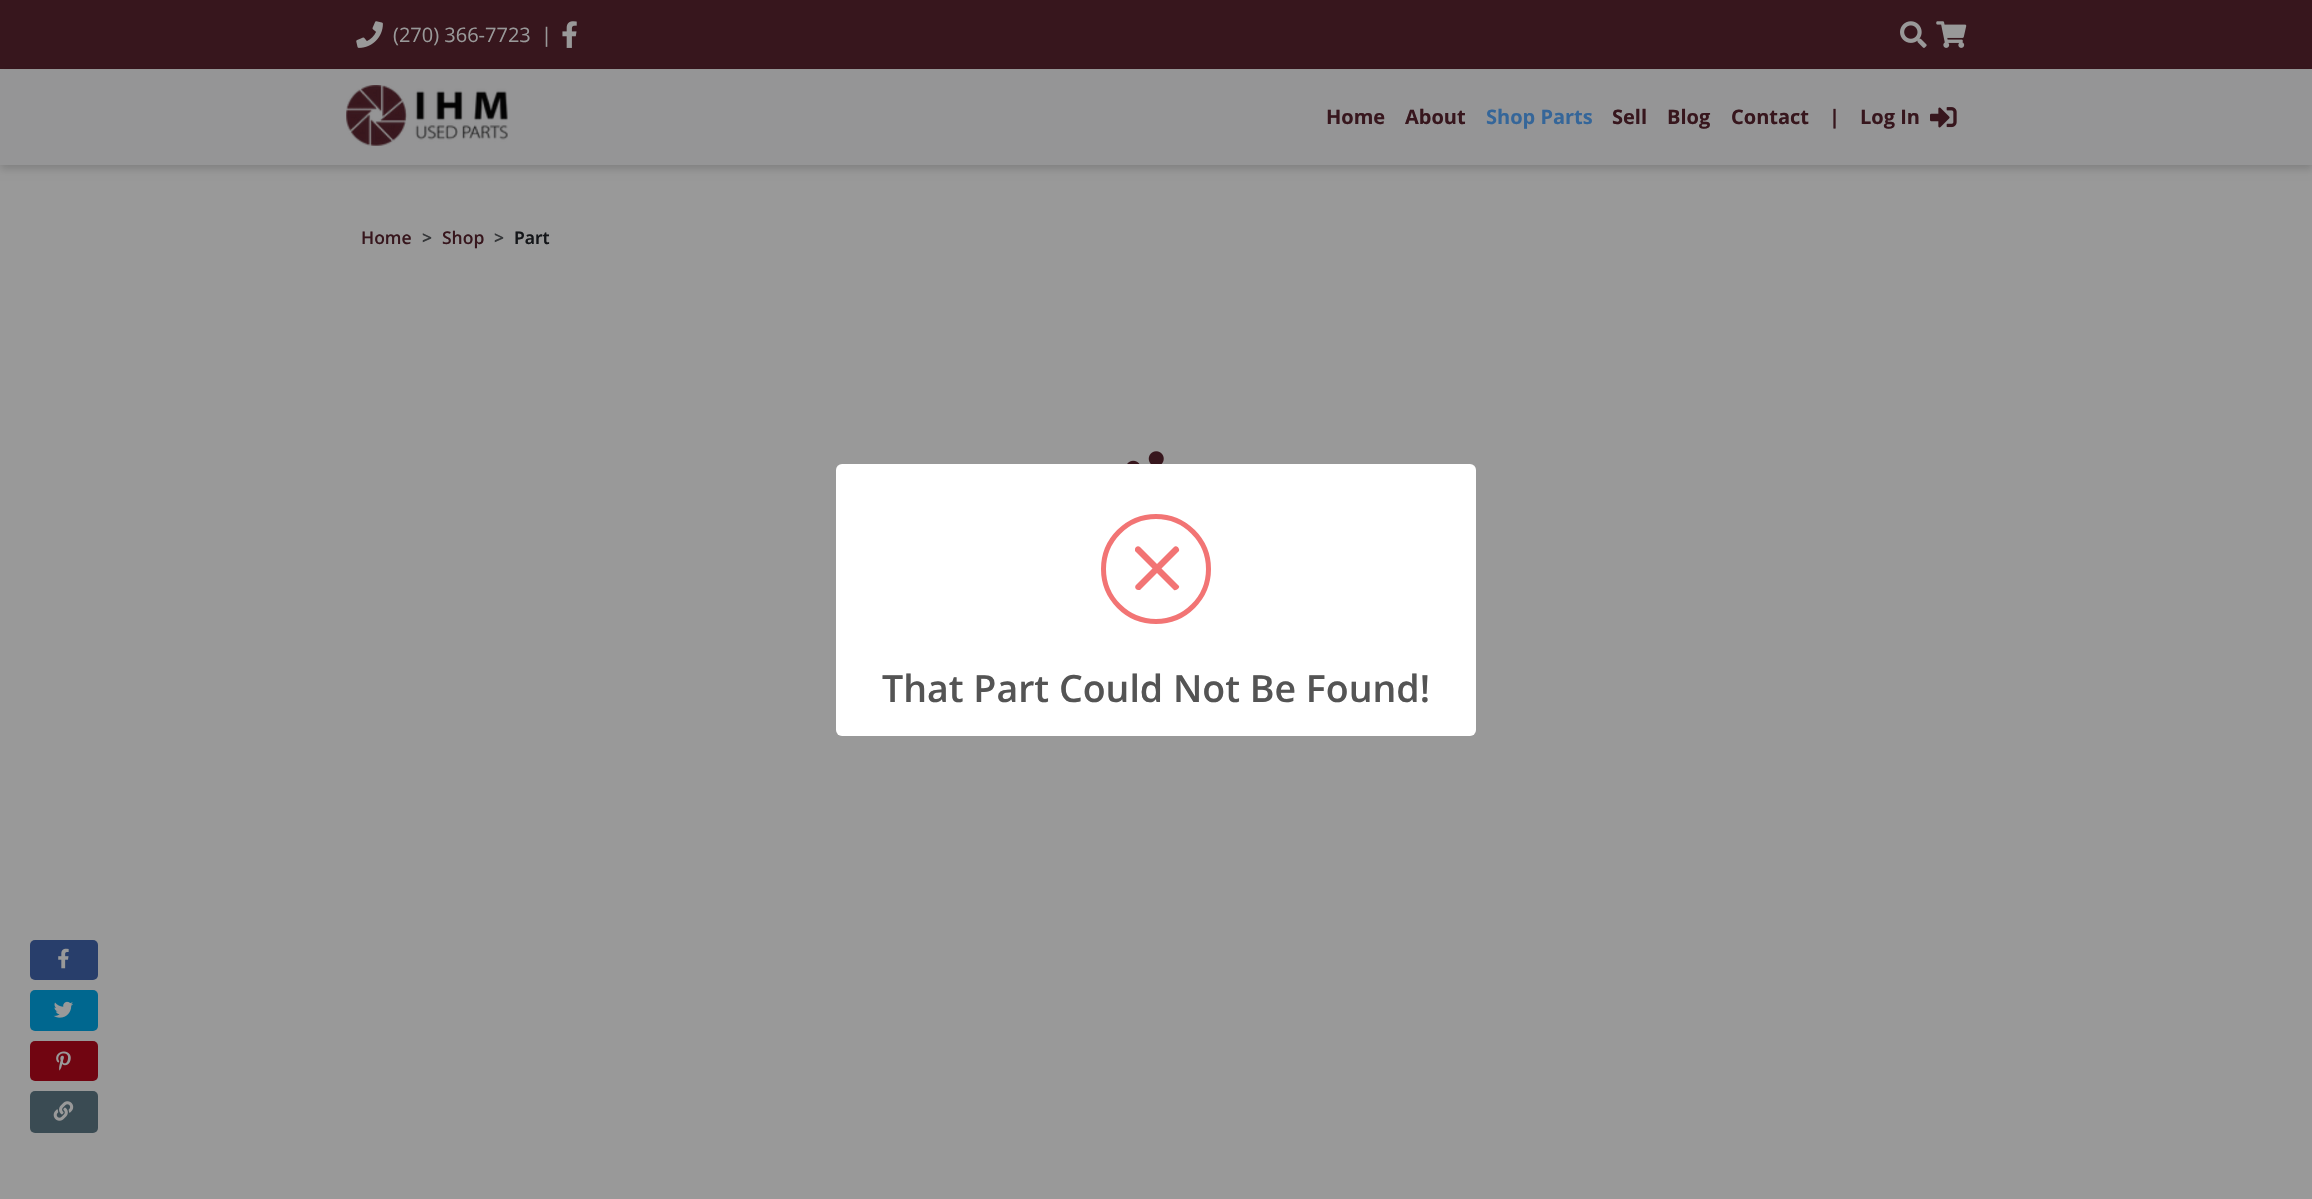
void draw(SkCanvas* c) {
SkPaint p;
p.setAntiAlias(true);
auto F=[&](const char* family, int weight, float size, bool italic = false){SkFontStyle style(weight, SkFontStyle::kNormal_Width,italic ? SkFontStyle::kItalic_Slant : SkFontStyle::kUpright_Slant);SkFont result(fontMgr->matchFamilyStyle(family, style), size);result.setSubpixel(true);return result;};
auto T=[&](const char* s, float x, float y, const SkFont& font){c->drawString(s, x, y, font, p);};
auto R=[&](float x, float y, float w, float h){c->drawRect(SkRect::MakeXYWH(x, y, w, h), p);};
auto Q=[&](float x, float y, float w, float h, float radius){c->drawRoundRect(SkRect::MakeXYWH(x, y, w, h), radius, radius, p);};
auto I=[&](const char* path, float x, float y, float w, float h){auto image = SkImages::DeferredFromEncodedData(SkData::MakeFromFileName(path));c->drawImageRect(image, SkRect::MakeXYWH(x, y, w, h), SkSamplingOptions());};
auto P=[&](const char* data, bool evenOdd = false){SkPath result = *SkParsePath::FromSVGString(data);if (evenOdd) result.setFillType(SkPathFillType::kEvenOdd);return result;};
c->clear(0xff999999);
p.setColor(0xff37161d);
R(0,0,2312,69);
I("1.png",356,21,27,27);
auto f1 = F("Open Sans",400,20);
p.setColor(0xff999999);
T("(270) 366-7723",393,42,f1);
auto f2 = F("Noto Sans",400,20);
T("|",541,42,f2);
I("2.png",562,21,15,27);
I("3.png",1900,21,27,27);
I("4.png",1936,21,31,27);
p.setColor(0x29000000);
p.setMaskFilter(SkMaskFilter::MakeBlur(kNormal_SkBlurStyle, 4));
c->drawRect(SkRect::MakeXYWH(0,73,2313,96),p);
p.setMaskFilter(nullptr);
p.setColor(0xff959596);
R(0,70,2312,95);
I("5.png",346,85,162,61);
auto f3 = F("Open Sans",700,20);
p.setColor(0xff37161d);
T("Home",1326,124,f3);
T("About",1405,124,f3);
p.setColor(0xff356699);
T("Shop Parts",1486,124,f3);
p.setColor(0xff37161d);
T("Sell",1612,124,f3);
T("Blog",1667,124,f3);
T("Contact",1731,124,f3);
T("|",1829,124,f3);
T("Log In",1860,124,f3);
I("6.png",1930,107,27,21);
auto f4 = F("Open Sans",600,17.5);
T("Home",361,244,f4);
auto f5 = F("Noto Sans",600,17.5);
p.setColor(0xff353739);
T(">",422,244,f5);
p.setColor(0xff37161d);
T("Shop",442,244,f4);
p.setColor(0xff353739);
T(">",494,244,f5);
p.setColor(0xff141619);
T("Part",514,244,f5);
I("7.png",1127,451,37,13);
p.setColor(0xff283e6b);
Q(30,940,68,40,5);
I("8.png",58,948,11,21);
p.setColor(0xff00678f);
Q(30,990,68,41,5);
I("9.png",53,1001,20,17);
p.setColor(0xff710511);
Q(30,1041,68,40,5);
I("10.png",56,1051,15,20);
p.setColor(0xff3a4b53);
Q(30,1091,68,42,5);
I("11.png",53,1101,21,20);
p.setColor(0xffffffff);
Q(836,464,640,272,6);
p.setStroke(true);
p.setStrokeWidth(5);
p.setColor(0xfff27474);
c->drawCircle(1156,569,52.5,p);
p.setStroke(false);
c->drawPath(P("M1140 547l39 39c1 2-3 5-5 4l-39-39v-2c0-2 3-4 5-2z"),p);
c->drawPath(P("M1136 585l38-38c2-2 6 1 5 4l-39 39h-2c-2 0-4-3-2-5z"),p);
auto f6 = F("Open Sans",600,37.5);
p.setColor(0xff545454);
T("That Part Could Not Be Found!",882,702,f6);
}
